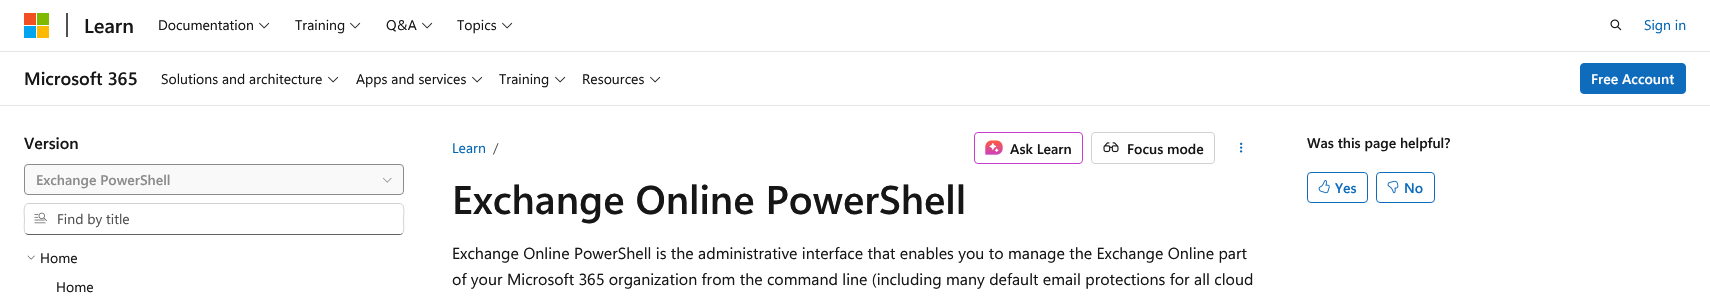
void draw(SkCanvas* c) {
SkPaint p;
p.setAntiAlias(true);
auto F=[&](const char* family, int weight, float size, bool italic = false){SkFontStyle style(weight, SkFontStyle::kNormal_Width,italic ? SkFontStyle::kItalic_Slant : SkFontStyle::kUpright_Slant);SkFont result(fontMgr->matchFamilyStyle(family, style), size);result.setSubpixel(true);return result;};
auto T=[&](const char* s, float x, float y, const SkFont& font){c->drawString(s, x, y, font, p);};
auto R=[&](float x, float y, float w, float h){c->drawRect(SkRect::MakeXYWH(x, y, w, h), p);};
auto I=[&](const char* path, float x, float y, float w, float h){auto image = SkImages::DeferredFromEncodedData(SkData::MakeFromFileName(path));c->drawImageRect(image, SkRect::MakeXYWH(x, y, w, h), SkSamplingOptions());};
auto P=[&](const char* data, bool evenOdd = false){SkPath result = *SkParsePath::FromSVGString(data);if (evenOdd) result.setFillType(SkPathFillType::kEvenOdd);return result;};
c->clear(0xffffffff);
p.setColor(0xffe6e6e6);
R(0,51,1710,1);
p.setColor(0xfff25022);
R(24,13,12,12);
p.setColor(0xff7fba00);
R(37,13,12,12);
p.setColor(0xff00a4ef);
R(24,26,12,12);
p.setColor(0xffffb900);
R(37,26,12,12);
p.setColor(0xff505050);
R(66,13,2,24);
auto f1 = F("Segoe UI",600,20);
p.setColor(0xff161616);
T("Learn",84,33,f1);
auto f2 = F("Segoe UI",400,14);
T("Documentation",158,30,f2);
I("1.png",259,22,11,7);
T("Training",295,30,f2);
I("1.png",350,22,11,7);
T("Q&A",386,30,f2);
I("1.png",422,22,11,7);
T("Topics",457,30,f2);
I("1.png",502,22,11,7);
I("2.png",1610,19,12,12);
p.setColor(0xff0065b3);
T("Sign in",1644,30,f2);
p.setColor(0xffe6e6e6);
R(0,105,1710,1);
auto f3 = F("Segoe UI",600,18);
p.setColor(0xff161616);
T("Microsoft 365",24,85,f3);
T("Solutions and architecture",161,84,f2);
I("1.png",328,76,11,7);
T("Apps and services",356,84,f2);
I("1.png",472,76,11,7);
T("Training",499,84,f2);
I("1.png",555,76,11,7);
T("Resources",582,84,f2);
I("1.png",650,76,11,7);
p.setColor(0xff0f6cbd);
c->drawRoundRect(SkRect::MakeXYWH(1580.5,63.5,105,30),3.5,3.5,p);
p.setStroke(true);
p.setStrokeWidth(1);
c->drawRoundRect(SkRect::MakeXYWH(1580.5,63.5,105,30),3.5,3.5,p);
auto f4 = F("Segoe UI",600,14);
p.setStroke(false);
p.setColor(0xffffffff);
T("Free Account",1591,84,f4);
auto f5 = F("Segoe UI",600,16);
p.setColor(0xff161616);
T("Version",24,149,f5);
p.setColor(0xfff9f9f9);
c->drawRoundRect(SkRect::MakeXYWH(24.5,164.5,379,30),3.5,3.5,p);
p.setStroke(true);
p.setColor(0xff8b8b8b);
c->drawRoundRect(SkRect::MakeXYWH(24.5,164.5,379,30),3.5,3.5,p);
p.setStroke(false);
T("Exchange PowerShell",36,185,f4);
I("3.png",383,177,9,6);
p.setStroke(true);
p.setColor(0xff616161);
c->drawPath(P("M402.5 233.5l-2 1h-124.5h-248l-2.5-1"),p);
p.setColor(0xffd1d1d1);
c->drawPath(P("M25.5 233.5c-2-2.5-1-11.5-1-14.5c0-3-1.5-12.5 1.5-14.5l1.5-1h186.5h186.5l1.5 1c3 2 1.5 11.5 1.5 14.5c0 3 1 12-1 14.5"),p);
I("4.png",34,212,13,12);
p.setStroke(false);
p.setColor(0xff505050);
T("Find by title",57,224,f2);
I("5.png",27,255,8,5);
p.setColor(0xff161616);
T("Home",40,263,f2);
T("Home",56,292,f2);
p.setColor(0xff0065b3);
T("Learn",452,153,f2);
p.setColor(0xff505050);
T("/",493,153,f2);
p.setStroke(true);
p.setColor(0xffc73ecc);
c->drawRoundRect(SkRect::MakeXYWH(974.5,132.5,108,31),3.5,3.5,p);
I("6.png",985,140,18,15);
p.setStroke(false);
p.setColor(0xff161616);
T("Ask Learn",1010,154,f4);
p.setStroke(true);
p.setColor(0xffd1d1d1);
c->drawRoundRect(SkRect::MakeXYWH(1091.5,132.5,123,31),3.5,3.5,p);
I("7.png",1103,142,16,11);
p.setStroke(false);
p.setColor(0xff161616);
T("Focus mode",1127,154,f4);
I("8.png",1240,142,3,11);
auto f6 = F("Segoe UI",600,40);
T("Exchange Online PowerShell",452,214,f6);
auto f7 = F("Segoe UI",400,16);
T("Exchange Online PowerShell is the administrative interface that enables you to manage the Exchange Online part",452,259,f7);
T("of your Microsoft 365 organization from the command line (including many default email protections for all cloud",452,285,f7);
T("Was this page helpful?",1307,148,f4);
p.setStroke(true);
p.setColor(0xff0f6cbd);
c->drawRoundRect(SkRect::MakeXYWH(1307.5,172.5,60,30),3.5,3.5,p);
I("9.png",1318,180,12,14);
p.setStroke(false);
T("Yes",1335,193,f4);
p.setStroke(true);
c->drawRoundRect(SkRect::MakeXYWH(1376.5,172.5,58,30),3.5,3.5,p);
I("10.png",1387,180,12,14);
p.setStroke(false);
T("No",1404,193,f4);
}
